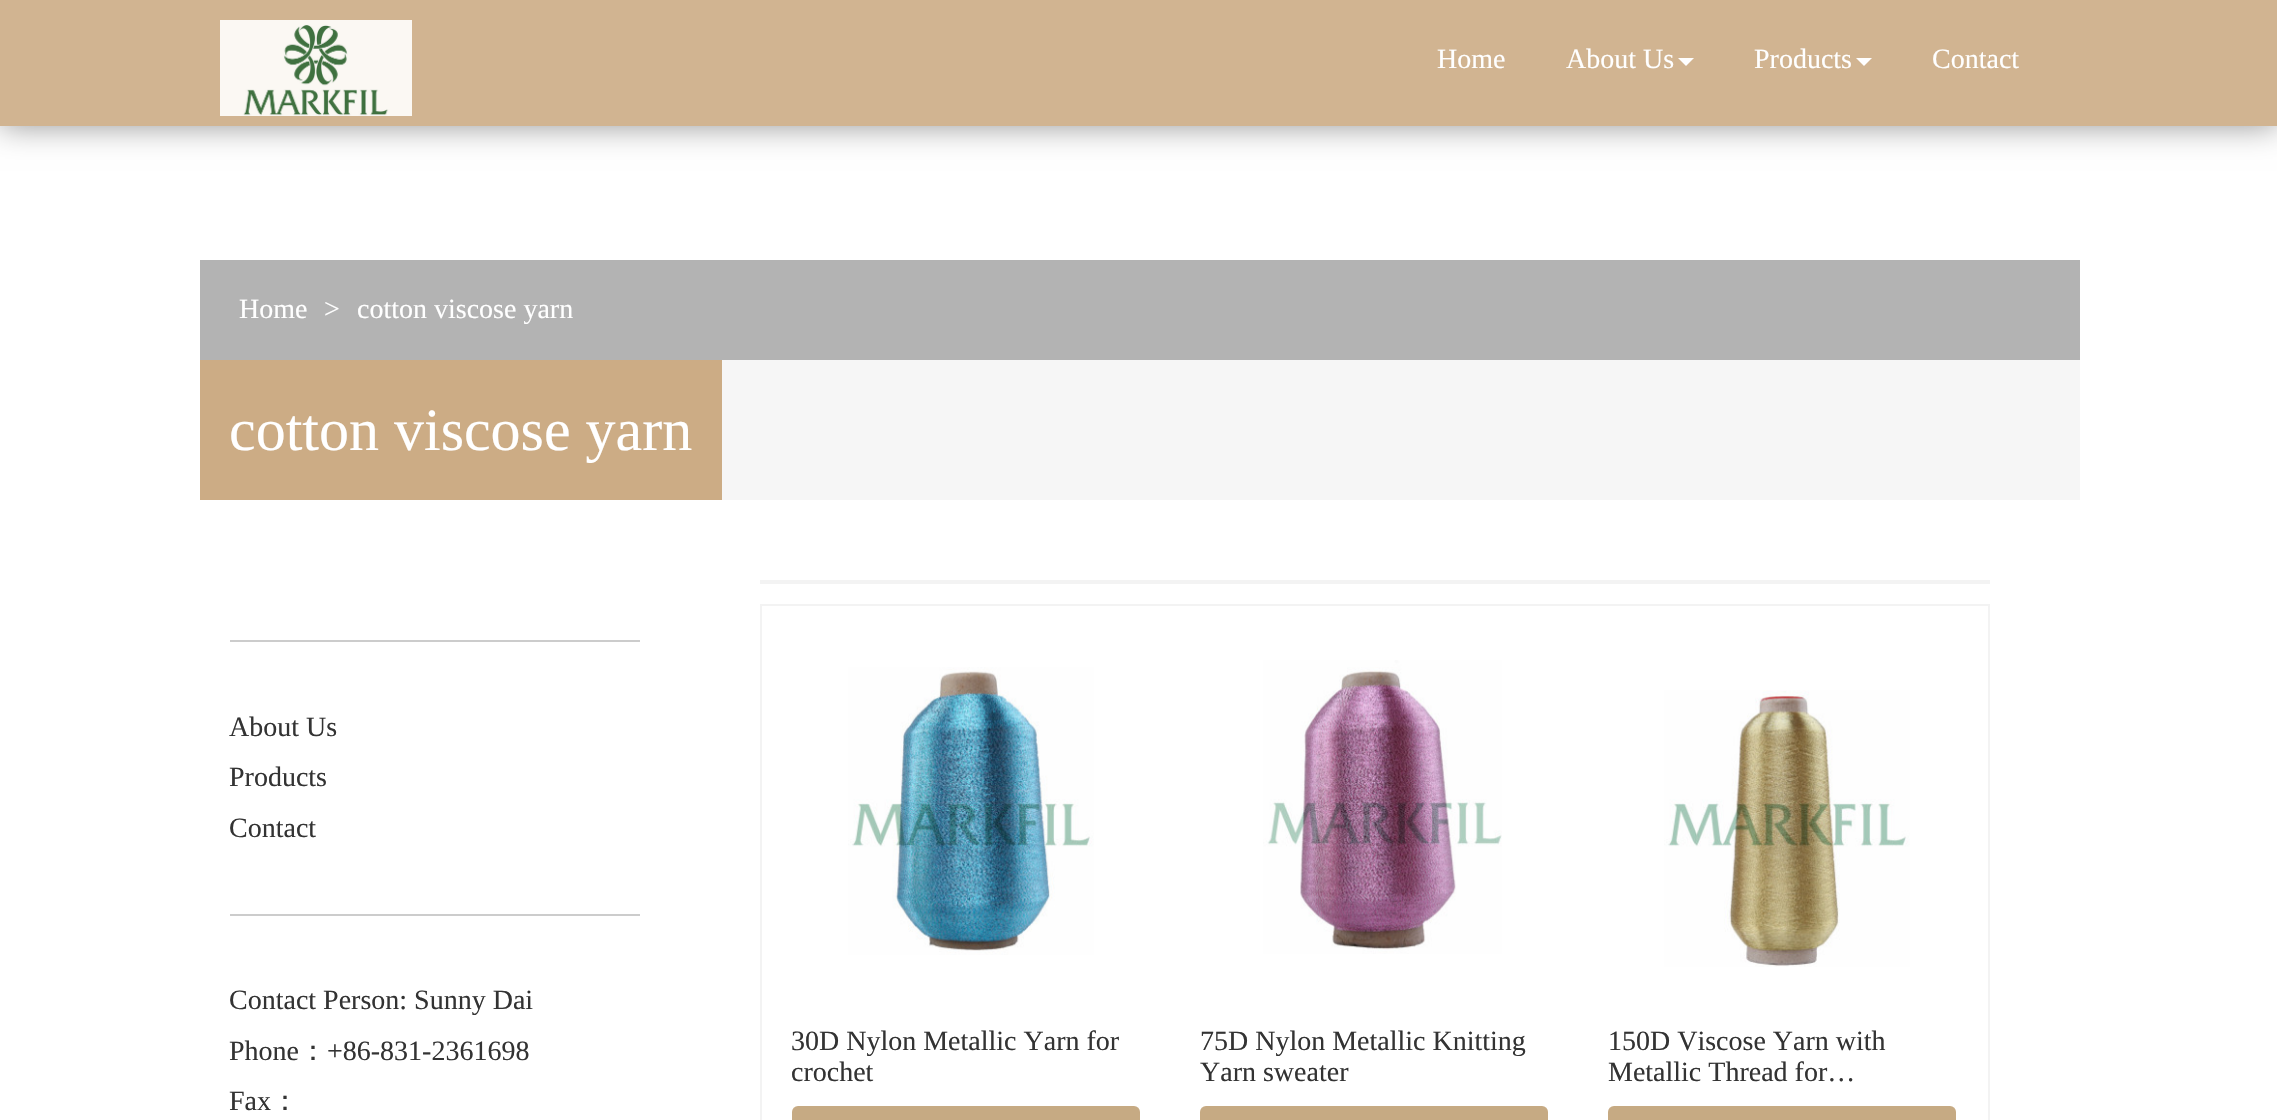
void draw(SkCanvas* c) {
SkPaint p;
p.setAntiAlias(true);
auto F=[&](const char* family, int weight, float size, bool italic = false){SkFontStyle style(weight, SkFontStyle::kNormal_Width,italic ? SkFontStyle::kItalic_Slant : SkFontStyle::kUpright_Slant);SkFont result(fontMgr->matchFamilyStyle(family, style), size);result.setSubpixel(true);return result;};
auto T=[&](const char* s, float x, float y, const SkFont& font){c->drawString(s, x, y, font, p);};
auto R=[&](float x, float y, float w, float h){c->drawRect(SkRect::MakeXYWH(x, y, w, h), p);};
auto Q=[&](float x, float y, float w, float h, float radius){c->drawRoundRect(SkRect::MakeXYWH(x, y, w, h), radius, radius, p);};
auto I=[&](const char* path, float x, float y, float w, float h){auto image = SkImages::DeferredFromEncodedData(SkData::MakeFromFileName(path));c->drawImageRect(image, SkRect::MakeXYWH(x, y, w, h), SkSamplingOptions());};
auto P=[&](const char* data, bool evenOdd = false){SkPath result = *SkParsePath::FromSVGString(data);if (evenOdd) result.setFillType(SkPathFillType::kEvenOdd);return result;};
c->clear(0xffffffff);
p.setColor(0xff949494);
p.setMaskFilter(SkMaskFilter::MakeBlur(kNormal_SkBlurStyle, 15));
c->drawRect(SkRect::MakeXYWH(0,0,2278,126),p);
p.setMaskFilter(nullptr);
p.setColor(0xffd1b491);
R(0,0,2277,126);
I("1.png",220,20,192,96);
auto f1 = F("Liberation Serif",400,28);
p.setColor(0xffffffff);
T("Home",1437,68,f1);
T("About Us",1566,68,f1);
c->drawPath(P("M1678 58h16l-8 8z"),p);
T("Products",1754,68,f1);
c->drawPath(P("M1856 58h16l-8 8z"),p);
T("Contact",1932,68,f1);
p.setColor(0xffb3b3b3);
R(200,260,1880,100);
p.setColor(0xffffffff);
T("Home",239,318,f1);
T(">",324,318,f1);
T("cotton viscose yarn",357,318,f1);
p.setColor(0xfff6f6f6);
R(722,360,1358,140);
p.setColor(0xffccac85);
R(200,360,522,140);
auto f2 = F("Liberation Serif",400,60);
p.setColor(0xffffffff);
T("cotton viscose yarn",229,450,f2);
p.setColor(0xffcccccc);
R(230,640,410,2);
p.setColor(0xff333333);
T("About Us",229,736,f1);
T("Products",229,786,f1);
T("Contact",229,837,f1);
p.setColor(0xffcccccc);
R(230,914,410,2);
p.setColor(0xff333333);
T("Contact Person: Sunny Dai",229,1009,f1);
T("Phone",229,1060,f1);
auto f3 = F("WenQuanYi Zen Hei",500,28);
T("：",299,1060,f3);
T("+86-831-2361698",327,1060,f1);
T("Fax",229,1110,f1);
T("：",271,1110,f3);
p.setColor(0xfff3f3f3);
R(760,580,1230,4);
p.setStroke(true);
p.setStrokeWidth(2);
c->drawRect(SkRect::MakeXYWH(761,605,1228,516),p);
I("2.png",848,667,246,288);
p.setStroke(false);
p.setColor(0xff333333);
T("30D Nylon Metallic Yarn for",791,1050,f1);
T("crochet",791,1081,f1);
p.setColor(0xffc6aa83);
Q(792,1106,348,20,6);
I("3.png",1263,660,239,294);
p.setColor(0xff333333);
T("75D Nylon Metallic Knitting",1200,1050,f1);
T("Yarn sweater",1200,1081,f1);
p.setColor(0xffc6aa83);
Q(1200,1106,348,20,6);
I("4.png",1664,690,246,277);
p.setColor(0xff333333);
T("150D Viscose Yarn with",1608,1050,f1);
T("Metallic Thread for…",1608,1081,f1);
p.setColor(0xffc6aa83);
Q(1608,1106,348,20,6);
}
